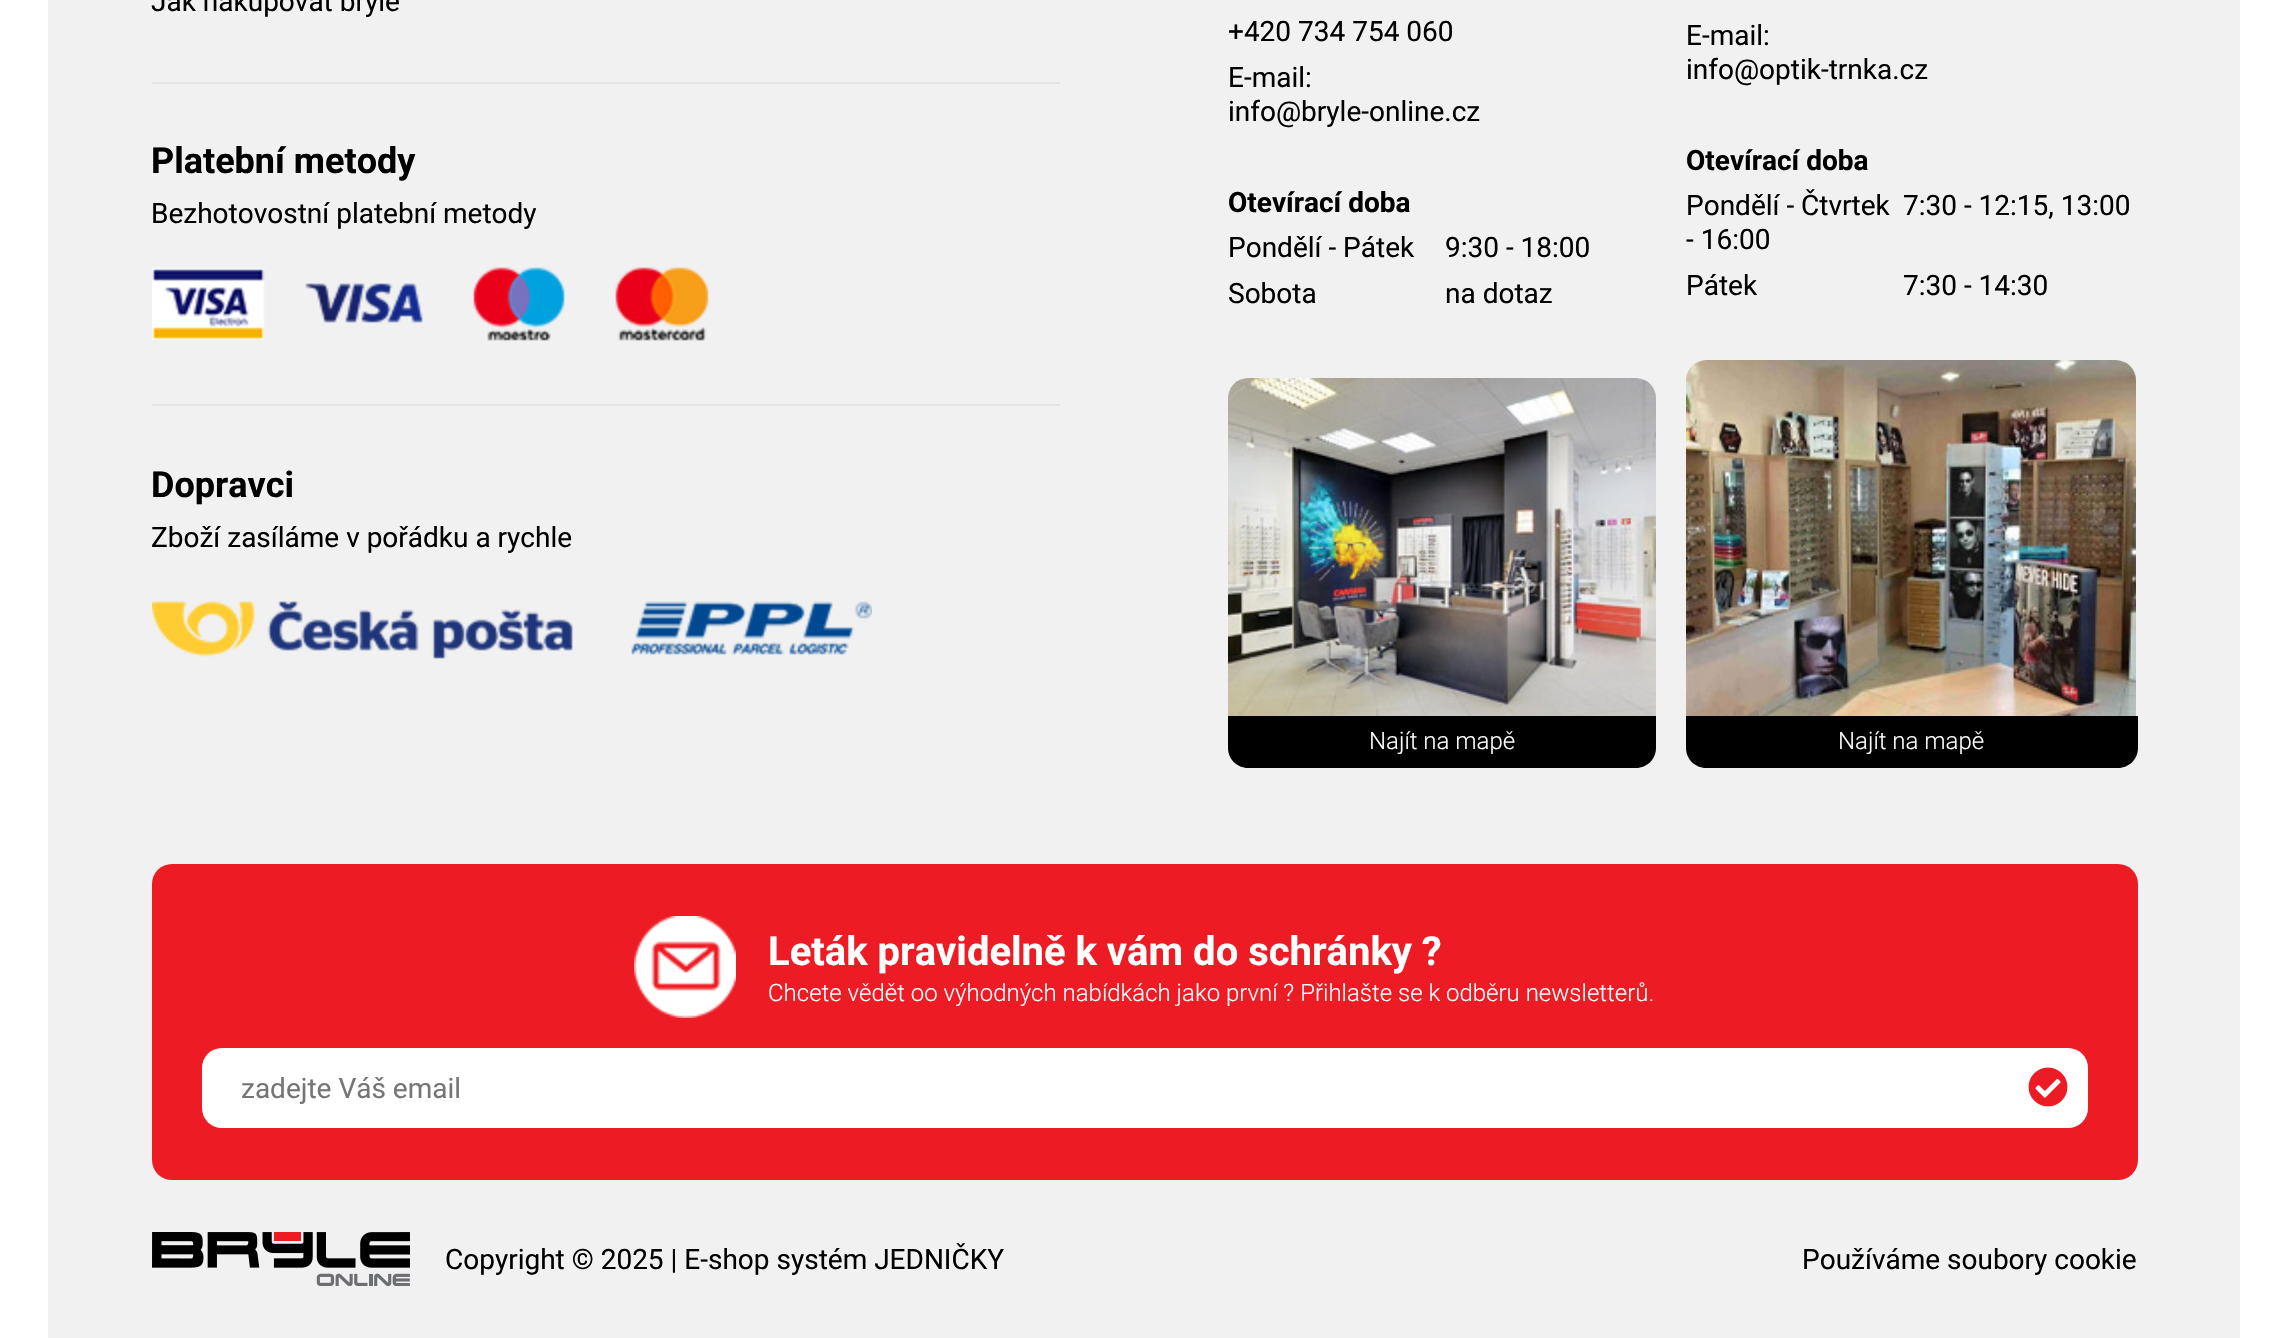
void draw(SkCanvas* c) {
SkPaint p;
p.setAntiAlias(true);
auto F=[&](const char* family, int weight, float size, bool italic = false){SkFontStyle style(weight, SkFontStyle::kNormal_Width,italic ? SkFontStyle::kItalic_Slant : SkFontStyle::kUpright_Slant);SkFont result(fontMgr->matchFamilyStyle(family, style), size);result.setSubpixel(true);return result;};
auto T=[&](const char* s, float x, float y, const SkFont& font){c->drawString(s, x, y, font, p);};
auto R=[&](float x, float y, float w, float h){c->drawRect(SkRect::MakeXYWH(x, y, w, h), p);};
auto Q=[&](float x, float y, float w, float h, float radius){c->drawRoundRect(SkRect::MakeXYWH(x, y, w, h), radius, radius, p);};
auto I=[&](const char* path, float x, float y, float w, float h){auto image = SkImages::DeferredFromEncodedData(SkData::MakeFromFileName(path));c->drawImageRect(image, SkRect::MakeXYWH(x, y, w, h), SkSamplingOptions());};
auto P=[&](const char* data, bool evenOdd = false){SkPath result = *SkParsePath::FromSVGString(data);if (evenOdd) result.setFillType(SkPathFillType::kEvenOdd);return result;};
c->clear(0xffffffff);
p.setColor(0xfff1f1f1);
R(48,0,2192,1338);
auto f1 = F("Roboto",400,28);
p.setColor(0xff000000);
T("Jak nakupovat brýle",151,11,f1);
p.setColor(0xffe3e3e3);
R(152,82,908,2);
auto f2 = F("Roboto",700,36);
p.setColor(0xff000000);
T("Platební metody",151,173,f2);
T("Bezhotovostní platební metody",151,223,f1);
I("1.png",152,267,557,74);
p.setColor(0xffe3e3e3);
R(152,404,908,2);
p.setColor(0xff000000);
T("Dopravci",151,497,f2);
T("Zboží zasíláme v pořádku a rychle",151,547,f1);
I("2.png",152,601,720,58);
T("+420 734 754 060",1228,41,f1);
T("E-mail:",1228,87,f1);
T("info@bryle-online.cz",1228,121,f1);
auto f3 = F("Roboto",700,28);
T("Otevírací doba",1228,212,f3);
T("Pondělí - Pátek",1228,257,f1);
T("9:30 - 18:00",1445,257,f1);
T("Sobota",1228,303,f1);
T("na dotaz",1445,303,f1);
I("3.png",1228,378,428,338);
c->drawPath(P("M1228 716h428v32c0 11-9 20-20 20h-388c-11 0-20-9-20-20z"),p);
auto f4 = F("Roboto",300,24);
p.setColor(0xffffffff);
T("Najít na mapě",1369,749,f4);
p.setColor(0xff000000);
T("E-mail:",1686,45,f1);
T("info@optik-trnka.cz",1686,79,f1);
T("Otevírací doba",1686,170,f3);
T("Pondělí - Čtvrtek",1686,215,f1);
T("7:30 - 12:15, 13:00",1903,215,f1);
T("- 16:00",1686,249,f1);
T("Pátek",1686,295,f1);
T("7:30 - 14:30",1903,295,f1);
I("4.png",1686,360,450,356);
c->drawPath(P("M1686 716h452v32c0 11-9 20-20 20h-412c-11 0-20-9-20-20z"),p);
p.setColor(0xffffffff);
T("Najít na mapě",1838,749,f4);
p.setColor(0xffed1c24);
Q(152,864,1986,316,20);
I("5.png",634,916,102,102);
auto f5 = F("Roboto",700,40);
p.setColor(0xffffffff);
T("Leták pravidelně k vám do schránky ?",768,965,f5);
T("Chcete vědět oo výhodných nabídkách jako první ? Přihlašte se k odběru newsletterů.",768,1001,f4);
Q(202,1048,1886,80,20);
p.setColor(0xff757575);
T("zadejte Váš email",241,1098,f1);
I("6.png",2028,1067,40,40);
I("7.png",152,1232,258,54);
p.setColor(0xff000000);
T("Copyright © 2025 | E-shop systém JEDNIČKY",445,1269,f1);
T("Používáme soubory cookie",1802,1269,f1);
}
